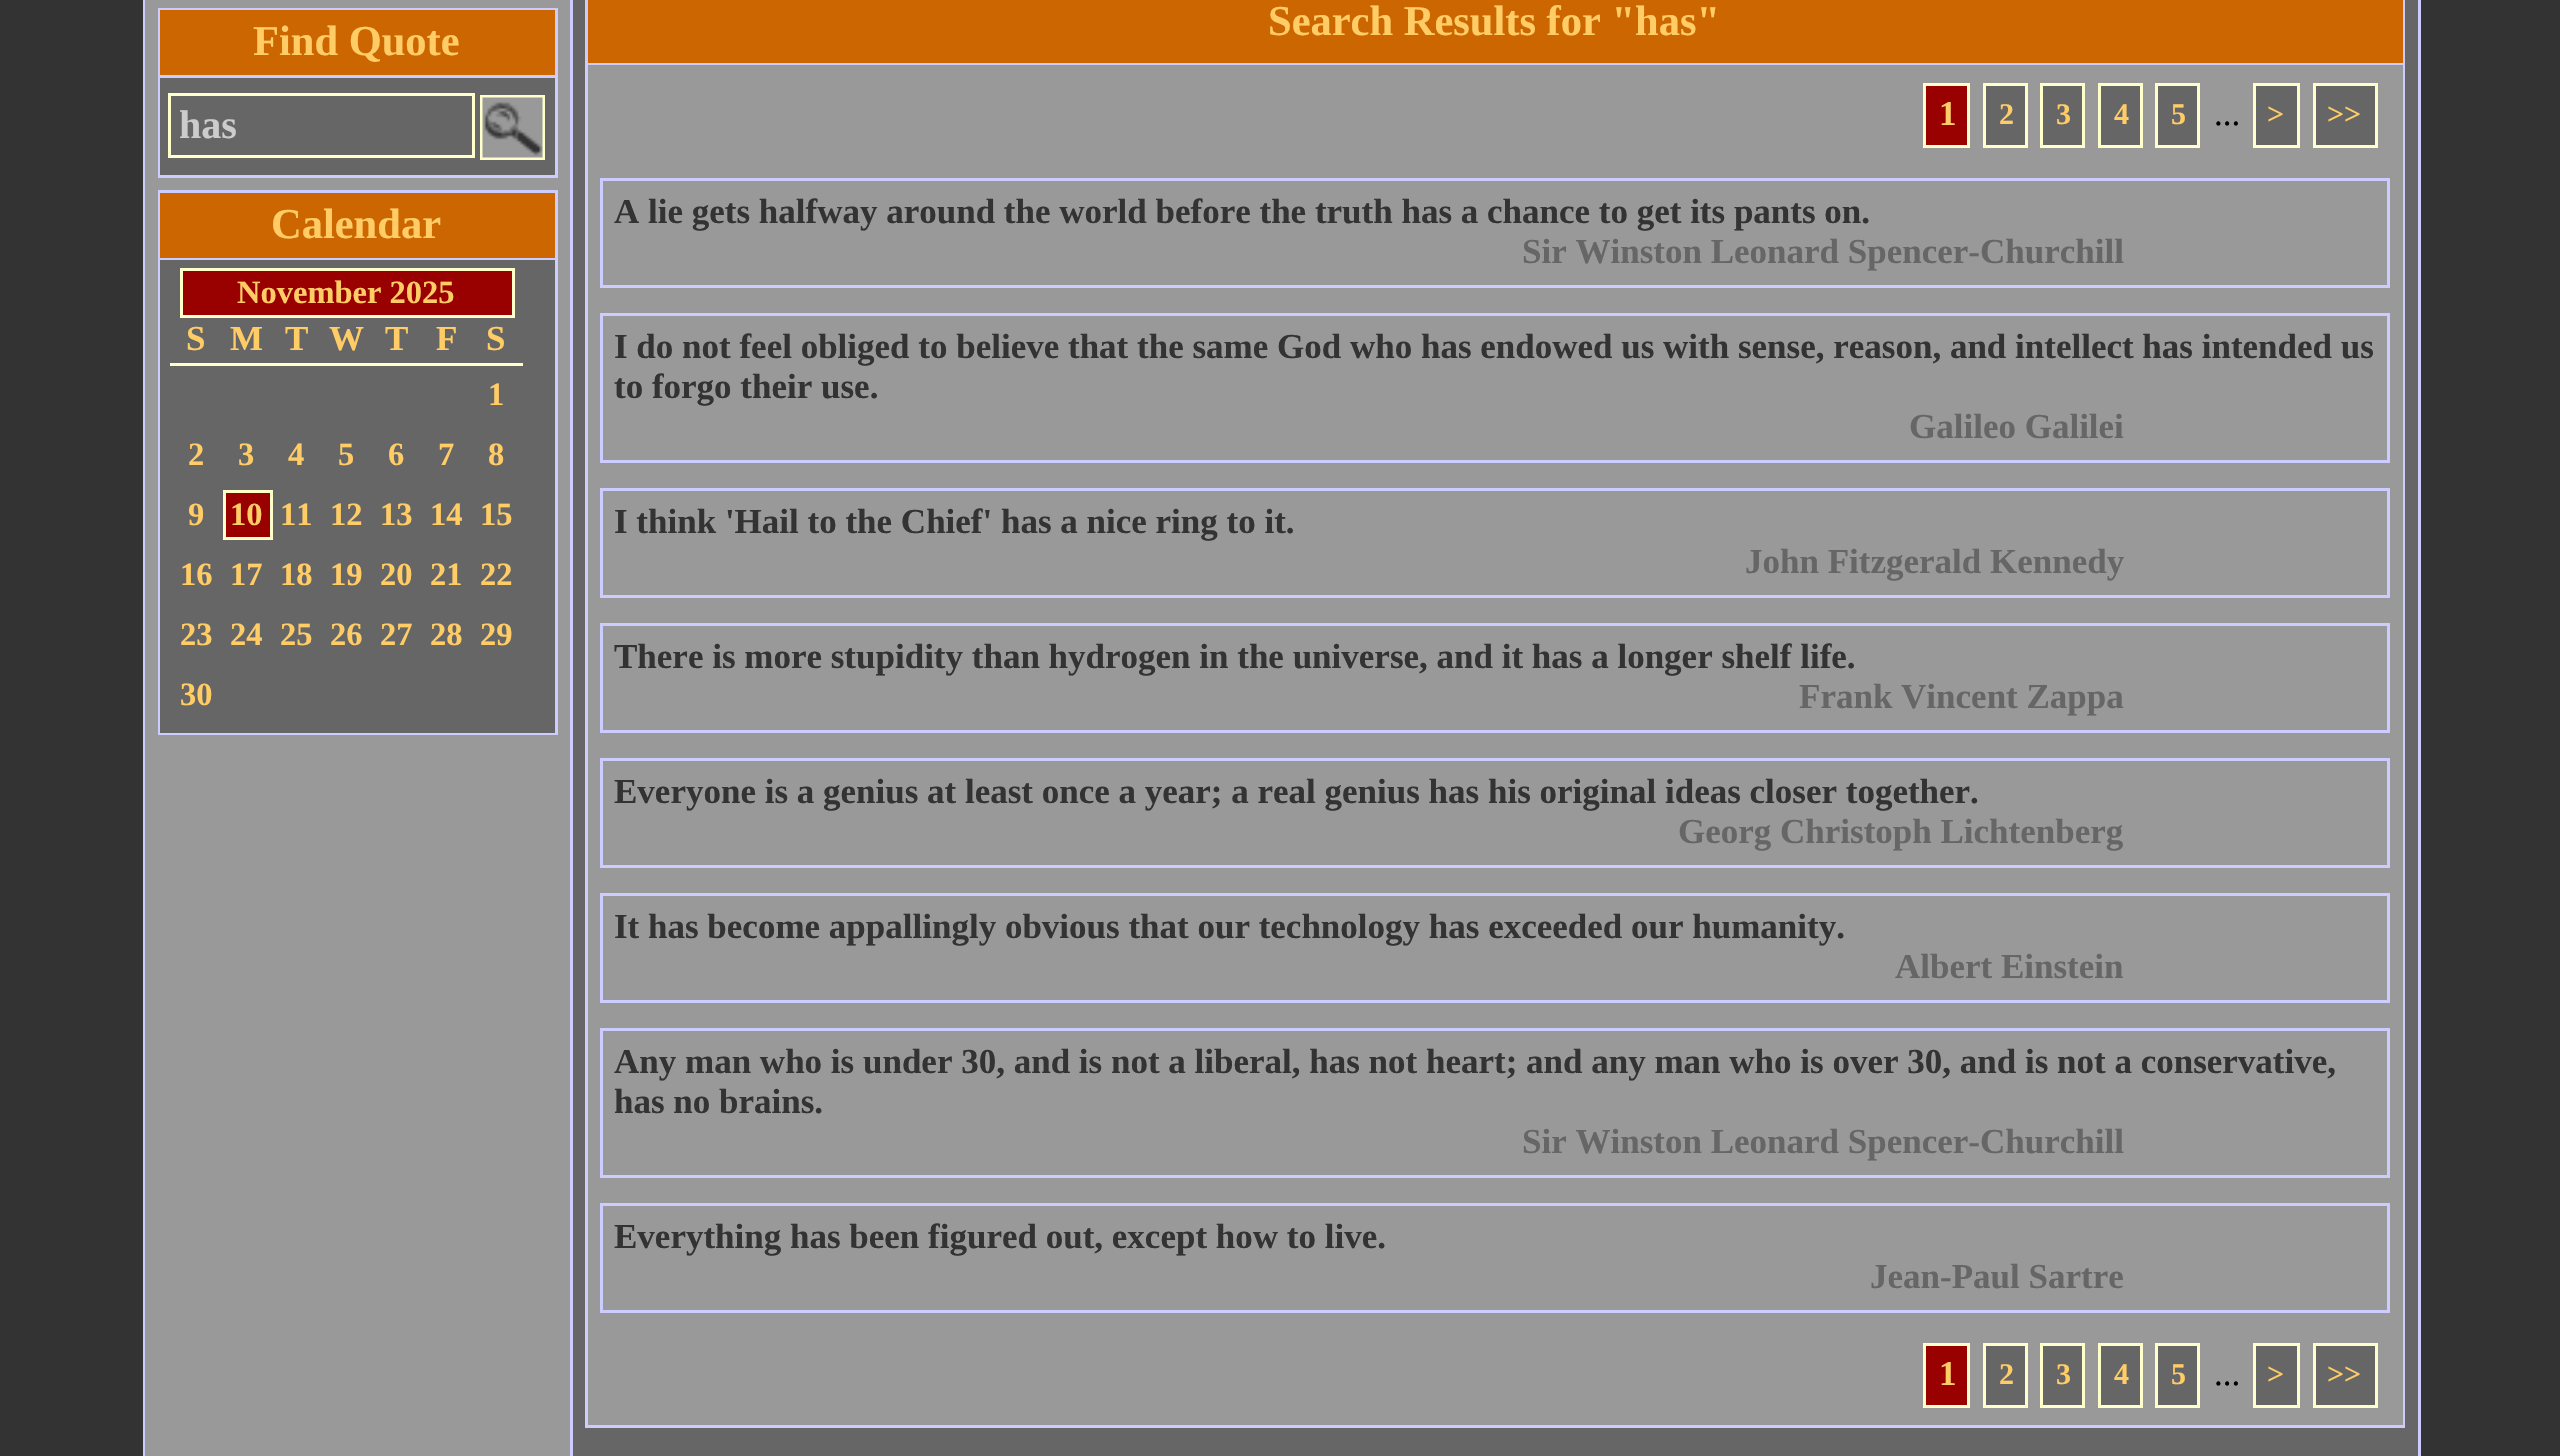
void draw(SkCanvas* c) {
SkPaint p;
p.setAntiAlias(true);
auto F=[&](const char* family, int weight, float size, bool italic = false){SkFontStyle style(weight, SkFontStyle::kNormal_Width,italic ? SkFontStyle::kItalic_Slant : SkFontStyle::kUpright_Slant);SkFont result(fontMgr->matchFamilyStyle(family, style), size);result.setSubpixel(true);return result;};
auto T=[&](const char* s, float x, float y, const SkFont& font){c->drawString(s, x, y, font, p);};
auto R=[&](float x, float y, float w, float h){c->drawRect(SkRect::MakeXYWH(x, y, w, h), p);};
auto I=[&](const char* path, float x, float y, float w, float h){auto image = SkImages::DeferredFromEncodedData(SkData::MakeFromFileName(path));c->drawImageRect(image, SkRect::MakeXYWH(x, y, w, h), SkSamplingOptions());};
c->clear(0xff333333);
p.setColor(0xffccccff);
R(2418,0,3,1456);
R(143,0,2,1456);
p.setColor(0xff999999);
R(145,0,425,1456);
p.setColor(0xffccccff);
R(570,0,3,1456);
p.setStroke(true);
p.setStrokeWidth(3);
c->drawRect(SkRect::MakeXYWH(159.5,9.5,397,167),p);
p.setStroke(false);
R(160,75,395,3);
p.setColor(0xffcc6600);
R(160,10,395,65);
auto f1 = F("Liberation Serif",700,42.5);
p.setColor(0xffffcc66);
T("Find Quote",253,55,f1);
p.setColor(0xff666666);
R(160,78,395,97);
p.setStroke(true);
p.setColor(0xffffffcc);
c->drawRect(SkRect::MakeXYWH(169.5,94.5,304,62),p);
c->save();
c->clipRect(SkRect::MakeXYWH(180,103,283,45));
auto f2 = F("Liberation Serif",700,40);
p.setStroke(false);
p.setColor(0xffcccccc);
T("has",179,138,f2);
c->restore();
p.setStroke(true);
p.setColor(0xffffffcc);
c->drawRect(SkRect::MakeXYWH(481.5,96.5,62,62),p);
I("1.png",482,97,61,61);
p.setColor(0xffccccff);
c->drawRect(SkRect::MakeXYWH(159.5,191.5,397,542),p);
p.setStroke(false);
R(160,258,395,2);
p.setColor(0xffcc6600);
R(160,193,395,65);
p.setColor(0xffffcc66);
T("Calendar",271,238,f1);
p.setColor(0xff666666);
R(160,260,395,473);
p.setColor(0xff990000);
c->drawRect(SkRect::MakeXYWH(181.5,269.5,332,47),p);
p.setStroke(true);
p.setColor(0xffffffcc);
c->drawRect(SkRect::MakeXYWH(181.5,269.5,332,47),p);
auto f3 = F("Liberation Serif",700,32.5);
p.setStroke(false);
p.setColor(0xffffcc66);
T("November 2025",237,303,f3);
auto f4 = F("Liberation Serif",700,35);
T("S",186,350,f4);
T("M",230,350,f4);
T("T",285,350,f4);
T("W",329,350,f4);
T("T",385,350,f4);
T("F",436,350,f4);
p.setColor(0xffffffcc);
R(170,363,353,3);
p.setColor(0xffffcc66);
T("S",486,350,f4);
T("1",488,405,f3);
T("2",188,465,f3);
T("3",238,465,f3);
T("4",288,465,f3);
T("5",338,465,f3);
T("6",388,465,f3);
T("7",438,465,f3);
T("8",488,465,f3);
T("9",188,525,f3);
p.setColor(0xff990000);
c->drawRect(SkRect::MakeXYWH(224.5,491.5,47,47),p);
p.setStroke(true);
p.setColor(0xffffffcc);
c->drawRect(SkRect::MakeXYWH(224.5,491.5,47,47),p);
p.setStroke(false);
p.setColor(0xffffcc66);
T("10",230,525,f3);
T("11",280,525,f3);
T("12",330,525,f3);
T("13",380,525,f3);
T("14",430,525,f3);
T("15",480,525,f3);
T("16",180,585,f3);
T("17",230,585,f3);
T("18",280,585,f3);
T("19",330,585,f3);
T("20",380,585,f3);
T("21",430,585,f3);
T("22",480,585,f3);
T("23",180,645,f3);
T("24",230,645,f3);
T("25",280,645,f3);
T("26",330,645,f3);
T("27",380,645,f3);
T("28",430,645,f3);
T("29",480,645,f3);
T("30",180,705,f3);
p.setColor(0xff666666);
R(573,0,1845,1456);
p.setStroke(true);
p.setColor(0xffccccff);
c->drawRect(SkRect::MakeXYWH(586.5,-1.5,1817,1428),p);
p.setStroke(false);
p.setColor(0xffcc6600);
R(588,0,1815,63);
p.setColor(0xffccccff);
R(588,63,1815,2);
p.setColor(0xffffcc66);
T("Search Results for \"has\"",1268,35,f1);
p.setColor(0xff999999);
R(588,65,1815,1360);
p.setColor(0xff990000);
c->drawRect(SkRect::MakeXYWH(1924.5,84.5,44,62),p);
p.setStroke(true);
p.setColor(0xffffffcc);
c->drawRect(SkRect::MakeXYWH(1924.5,84.5,44,62),p);
p.setStroke(false);
p.setColor(0xffffcc66);
T("1",1939,125,f4);
p.setColor(0xff666666);
c->drawRect(SkRect::MakeXYWH(1984.5,84.5,42,62),p);
p.setStroke(true);
p.setColor(0xffffffcc);
c->drawRect(SkRect::MakeXYWH(1984.5,84.5,42,62),p);
auto f5 = F("Liberation Serif",700,30);
p.setStroke(false);
p.setColor(0xffffcc66);
T("2",1999,124,f5);
p.setColor(0xff666666);
c->drawRect(SkRect::MakeXYWH(2041.5,84.5,42,62),p);
p.setStroke(true);
p.setColor(0xffffffcc);
c->drawRect(SkRect::MakeXYWH(2041.5,84.5,42,62),p);
p.setStroke(false);
p.setColor(0xffffcc66);
T("3",2056,124,f5);
p.setColor(0xff666666);
c->drawRect(SkRect::MakeXYWH(2099.5,84.5,42,62),p);
p.setStroke(true);
p.setColor(0xffffffcc);
c->drawRect(SkRect::MakeXYWH(2099.5,84.5,42,62),p);
p.setStroke(false);
p.setColor(0xffffcc66);
T("4",2114,124,f5);
p.setColor(0xff666666);
c->drawRect(SkRect::MakeXYWH(2156.5,84.5,42,62),p);
p.setStroke(true);
p.setColor(0xffffffcc);
c->drawRect(SkRect::MakeXYWH(2156.5,84.5,42,62),p);
p.setStroke(false);
p.setColor(0xffffcc66);
T("5",2171,124,f5);
p.setColor(0xff666666);
c->drawRect(SkRect::MakeXYWH(2254.5,84.5,44,62),p);
p.setStroke(true);
p.setColor(0xffffffcc);
c->drawRect(SkRect::MakeXYWH(2254.5,84.5,44,62),p);
p.setStroke(false);
p.setColor(0xffffcc66);
T(">",2267,124,f5);
p.setColor(0xff666666);
c->drawRect(SkRect::MakeXYWH(2314.5,84.5,62,62),p);
p.setStroke(true);
p.setColor(0xffffffcc);
c->drawRect(SkRect::MakeXYWH(2314.5,84.5,62,62),p);
p.setStroke(false);
p.setColor(0xffffcc66);
T(">>",2327,124,f5);
auto f6 = F("Liberation Serif",400,35);
p.setColor(0xff000000);
T("...",2214,125,f6);
p.setStroke(true);
p.setColor(0xffccccff);
c->drawRect(SkRect::MakeXYWH(601.5,179.5,1787,107),p);
p.setStroke(false);
p.setColor(0xff333333);
T("A lie gets halfway around the world before the truth has a chance to get its pants on.",614,223,f4);
p.setColor(0xff666666);
T("Sir Winston Leonard Spencer-Churchill",1522,263,f4);
p.setStroke(true);
p.setColor(0xffccccff);
c->drawRect(SkRect::MakeXYWH(601.5,314.5,1787,147),p);
p.setStroke(false);
p.setColor(0xff333333);
T("I do not feel obliged to believe that the same God who has endowed us with sense, reason, and intellect has intended us",614,358,f4);
T("to forgo their use.",614,398,f4);
p.setColor(0xff666666);
T("Galileo Galilei",1909,438,f4);
p.setStroke(true);
p.setColor(0xffccccff);
c->drawRect(SkRect::MakeXYWH(601.5,489.5,1787,107),p);
p.setStroke(false);
p.setColor(0xff333333);
T("I think 'Hail to the Chief' has a nice ring to it.",614,533,f4);
p.setColor(0xff666666);
T("John Fitzgerald Kennedy",1745,573,f4);
p.setStroke(true);
p.setColor(0xffccccff);
c->drawRect(SkRect::MakeXYWH(601.5,624.5,1787,107),p);
p.setStroke(false);
p.setColor(0xff333333);
T("There is more stupidity than hydrogen in the universe, and it has a longer shelf life.",614,668,f4);
p.setColor(0xff666666);
T("Frank Vincent Zappa",1799,708,f4);
p.setStroke(true);
p.setColor(0xffccccff);
c->drawRect(SkRect::MakeXYWH(601.5,759.5,1787,107),p);
p.setStroke(false);
p.setColor(0xff333333);
T("Everyone is a genius at least once a year; a real genius has his original ideas closer together.",614,803,f4);
p.setColor(0xff666666);
T("Georg Christoph Lichtenberg",1678,843,f4);
p.setStroke(true);
p.setColor(0xffccccff);
c->drawRect(SkRect::MakeXYWH(601.5,894.5,1787,107),p);
p.setStroke(false);
p.setColor(0xff333333);
T("It has become appallingly obvious that our technology has exceeded our humanity.",614,938,f4);
p.setColor(0xff666666);
T("Albert Einstein",1895,978,f4);
p.setStroke(true);
p.setColor(0xffccccff);
c->drawRect(SkRect::MakeXYWH(601.5,1029.5,1787,147),p);
p.setStroke(false);
p.setColor(0xff333333);
T("Any man who is under 30, and is not a liberal, has not heart; and any man who is over 30, and is not a conservative,",614,1073,f4);
T("has no brains.",614,1113,f4);
p.setColor(0xff666666);
T("Sir Winston Leonard Spencer-Churchill",1522,1153,f4);
p.setStroke(true);
p.setColor(0xffccccff);
c->drawRect(SkRect::MakeXYWH(601.5,1204.5,1787,107),p);
p.setStroke(false);
p.setColor(0xff333333);
T("Everything has been figured out, except how to live.",614,1248,f4);
p.setColor(0xff666666);
T("Jean-Paul Sartre",1870,1288,f4);
p.setColor(0xff990000);
c->drawRect(SkRect::MakeXYWH(1924.5,1344.5,44,62),p);
p.setStroke(true);
p.setColor(0xffffffcc);
c->drawRect(SkRect::MakeXYWH(1924.5,1344.5,44,62),p);
p.setStroke(false);
p.setColor(0xffffcc66);
T("1",1939,1385,f4);
p.setColor(0xff666666);
c->drawRect(SkRect::MakeXYWH(1984.5,1344.5,42,62),p);
p.setStroke(true);
p.setColor(0xffffffcc);
c->drawRect(SkRect::MakeXYWH(1984.5,1344.5,42,62),p);
p.setStroke(false);
p.setColor(0xffffcc66);
T("2",1999,1384,f5);
p.setColor(0xff666666);
c->drawRect(SkRect::MakeXYWH(2041.5,1344.5,42,62),p);
p.setStroke(true);
p.setColor(0xffffffcc);
c->drawRect(SkRect::MakeXYWH(2041.5,1344.5,42,62),p);
p.setStroke(false);
p.setColor(0xffffcc66);
T("3",2056,1384,f5);
p.setColor(0xff666666);
c->drawRect(SkRect::MakeXYWH(2099.5,1344.5,42,62),p);
p.setStroke(true);
p.setColor(0xffffffcc);
c->drawRect(SkRect::MakeXYWH(2099.5,1344.5,42,62),p);
p.setStroke(false);
p.setColor(0xffffcc66);
T("4",2114,1384,f5);
p.setColor(0xff666666);
c->drawRect(SkRect::MakeXYWH(2156.5,1344.5,42,62),p);
p.setStroke(true);
p.setColor(0xffffffcc);
c->drawRect(SkRect::MakeXYWH(2156.5,1344.5,42,62),p);
p.setStroke(false);
p.setColor(0xffffcc66);
T("5",2171,1384,f5);
p.setColor(0xff666666);
c->drawRect(SkRect::MakeXYWH(2254.5,1344.5,44,62),p);
p.setStroke(true);
p.setColor(0xffffffcc);
c->drawRect(SkRect::MakeXYWH(2254.5,1344.5,44,62),p);
p.setStroke(false);
p.setColor(0xffffcc66);
T(">",2267,1384,f5);
p.setColor(0xff666666);
c->drawRect(SkRect::MakeXYWH(2314.5,1344.5,62,62),p);
p.setStroke(true);
p.setColor(0xffffffcc);
c->drawRect(SkRect::MakeXYWH(2314.5,1344.5,62,62),p);
p.setStroke(false);
p.setColor(0xffffcc66);
T(">>",2327,1384,f5);
p.setColor(0xff000000);
T("...",2214,1385,f6);
}
